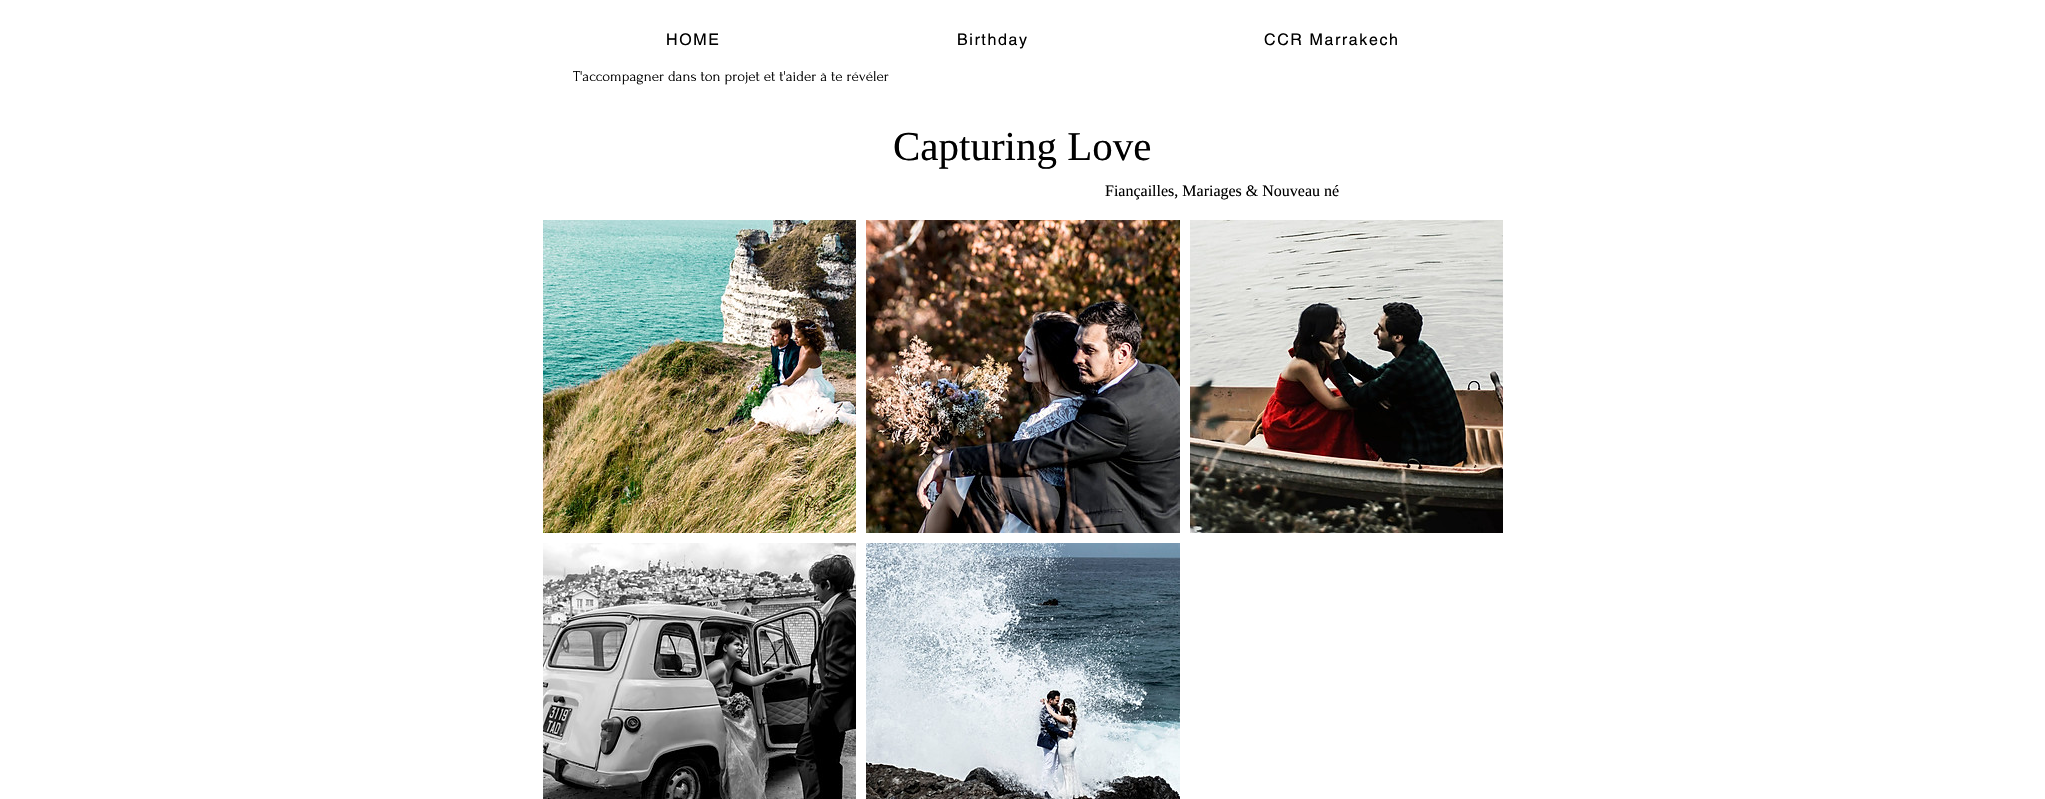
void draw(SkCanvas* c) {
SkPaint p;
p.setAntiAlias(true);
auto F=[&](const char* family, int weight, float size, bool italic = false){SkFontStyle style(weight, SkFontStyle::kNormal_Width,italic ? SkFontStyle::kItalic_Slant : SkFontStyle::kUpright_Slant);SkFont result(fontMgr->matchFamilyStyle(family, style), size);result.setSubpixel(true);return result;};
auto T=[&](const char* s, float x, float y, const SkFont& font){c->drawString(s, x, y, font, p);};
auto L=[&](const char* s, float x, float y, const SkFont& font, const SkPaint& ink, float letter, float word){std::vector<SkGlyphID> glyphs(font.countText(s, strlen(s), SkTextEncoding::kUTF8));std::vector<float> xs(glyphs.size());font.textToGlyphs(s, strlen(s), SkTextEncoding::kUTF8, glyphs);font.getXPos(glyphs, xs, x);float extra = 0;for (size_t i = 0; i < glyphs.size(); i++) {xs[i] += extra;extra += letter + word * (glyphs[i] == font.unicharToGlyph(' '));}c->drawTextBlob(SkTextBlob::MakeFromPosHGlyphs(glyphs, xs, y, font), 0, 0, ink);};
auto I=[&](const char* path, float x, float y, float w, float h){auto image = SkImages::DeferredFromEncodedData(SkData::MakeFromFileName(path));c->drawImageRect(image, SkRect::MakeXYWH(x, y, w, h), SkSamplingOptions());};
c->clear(0xffffffff);
auto f1 = F("helvetica",400,16);
p.setColor(0xff000000);
L("HOME",666,45,f1,p,1.6,0);
L("Birthday",957,45,f1,p,1.6,0);
L("CCR Marrakech",1264,45,f1,p,1.6,0);
auto f2 = F("Forum",400,15);
T("T'accompagner dans ton projet et t'aider à te révéler",573,81,f2);
auto f3 = F("Liberation Serif",400,41);
T("Capturing Love",893,160,f3);
auto f4 = F("Liberation Serif",400,16);
T("Fiançailles, Mariages & Nouveau né",1105,196,f4);
I("1.png",543,220,313,313);
I("2.png",866,220,314,313);
I("3.png",1190,220,313,313);
I("4.png",543,543,313,256);
I("5.png",866,543,314,256);
}
